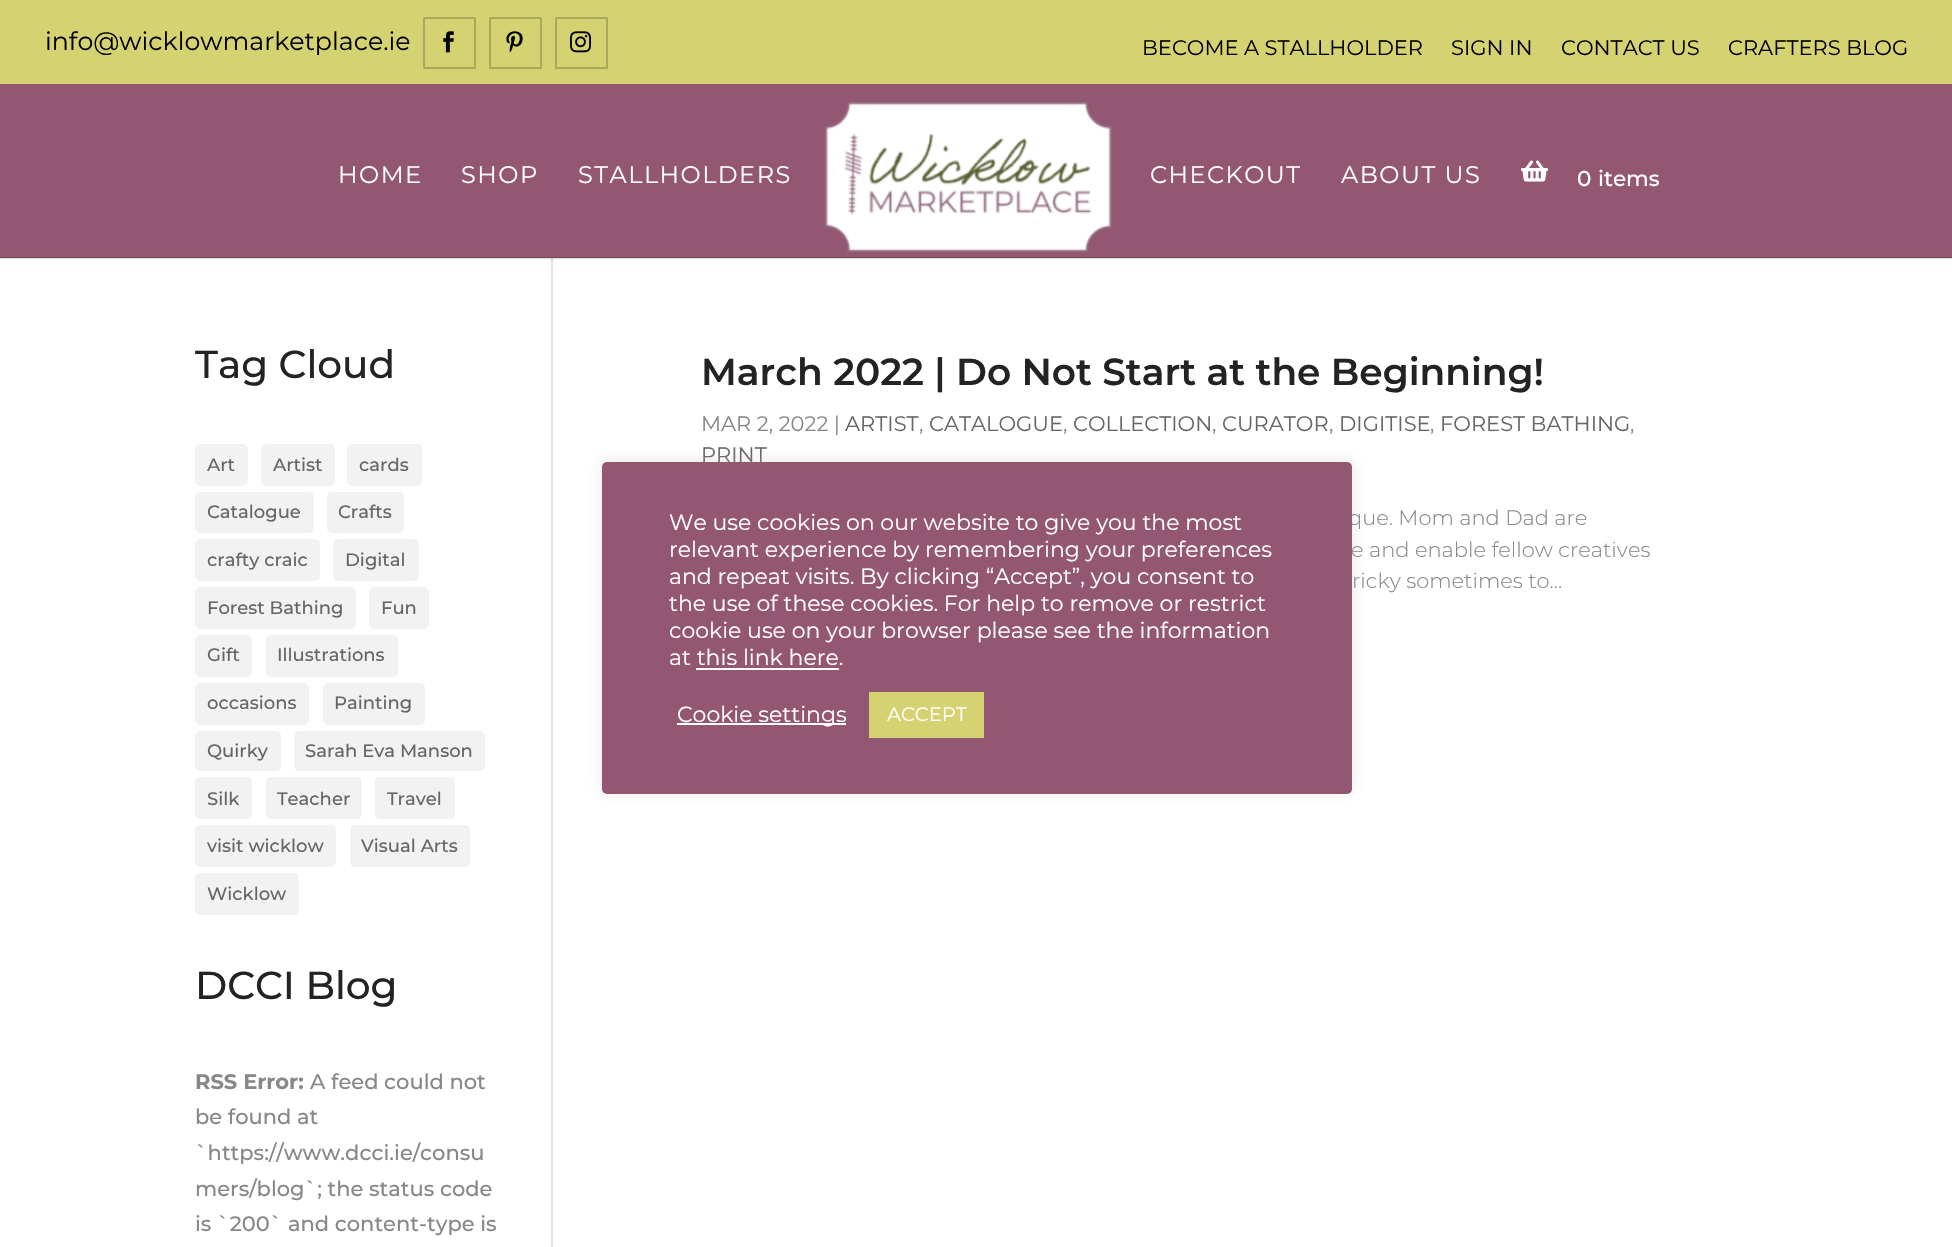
void draw(SkCanvas* c) {
SkPaint p;
p.setAntiAlias(true);
auto F=[&](const char* family, int weight, float size, bool italic = false){SkFontStyle style(weight, SkFontStyle::kNormal_Width,italic ? SkFontStyle::kItalic_Slant : SkFontStyle::kUpright_Slant);SkFont result(fontMgr->matchFamilyStyle(family, style), size);result.setSubpixel(true);return result;};
auto T=[&](const char* s, float x, float y, const SkFont& font){c->drawString(s, x, y, font, p);};
auto L=[&](const char* s, float x, float y, const SkFont& font, const SkPaint& ink, float letter, float word){std::vector<SkGlyphID> glyphs(font.countText(s, strlen(s), SkTextEncoding::kUTF8));std::vector<float> xs(glyphs.size());font.textToGlyphs(s, strlen(s), SkTextEncoding::kUTF8, glyphs);font.getXPos(glyphs, xs, x);float extra = 0;for (size_t i = 0; i < glyphs.size(); i++) {xs[i] += extra;extra += letter + word * (glyphs[i] == font.unicharToGlyph(' '));}c->drawTextBlob(SkTextBlob::MakeFromPosHGlyphs(glyphs, xs, y, font), 0, 0, ink);};
auto R=[&](float x, float y, float w, float h){c->drawRect(SkRect::MakeXYWH(x, y, w, h), p);};
auto Q=[&](float x, float y, float w, float h, float radius){c->drawRoundRect(SkRect::MakeXYWH(x, y, w, h), radius, radius, p);};
auto I=[&](const char* path, float x, float y, float w, float h){auto image = SkImages::DeferredFromEncodedData(SkData::MakeFromFileName(path));c->drawImageRect(image, SkRect::MakeXYWH(x, y, w, h), SkSamplingOptions());};
c->clear(0xffffffff);
p.setColor(0xffd9d9d9);
R(0,258,1952,1);
p.setColor(0xffd5d272);
R(0,0,1952,84);
auto f1 = F("Montserrat",400,25.25);
p.setColor(0xff000000);
T("info@wicklowmarketplace.ie",45,50,f1);
p.setStroke(true);
p.setStrokeWidth(2);
p.setColor(0xffaaa85b);
c->drawRoundRect(SkRect::MakeXYWH(424,18,51,50),.5,.5,p);
I("1.png",443,31,11,22);
c->drawRoundRect(SkRect::MakeXYWH(490,18,51,50),.5,.5,p);
I("2.png",506,31,17,22);
c->drawRoundRect(SkRect::MakeXYWH(556,18,51,50),.5,.5,p);
I("3.png",570,31,21,22);
auto f2 = F("Montserrat",400,21);
p.setStroke(false);
p.setColor(0xff000000);
T("BECOME A STALLHOLDER",1142,55,f2);
T("SIGN IN",1451,55,f2);
T("CONTACT US",1561,55,f2);
T("CRAFTERS BLOG",1728,55,f2);
p.setColor(0xff945772);
R(0,84,1952,173);
p.setColor(0xff7e4a61);
R(0,257,1952,1);
auto f3 = F("Montserrat",400,24);
p.setColor(0xffffffff);
L("HOME",338,183,f3,p,1.5,0);
L("SHOP",461,183,f3,p,1.5,0);
L("STALLHOLDERS",578,183,f3,p,1.5,0);
I("4.png",824,102,288,150);
L("CHECKOUT",1150,183,f3,p,1.5,0);
L("ABOUT US",1341,183,f3,p,1.5,0);
I("5.png",1521,160,27,22);
auto f4 = F("Montserrat",500,21.5);
T("0",1577,186,f4);
T("items",1598,186,f4);
p.setColor(0xffe2e2e2);
R(551,258,2,989);
p.setColor(0xffc0c0c0);
R(551,258,2,1);
auto f5 = F("Montserrat",500,39);
p.setColor(0xff232323);
T("Tag Cloud",195,378,f5);
p.setColor(0xfff2f2f2);
Q(195,444,53,42,5);
auto f6 = F("Montserrat",500,18);
p.setColor(0xff666666);
T("Art",207,471,f6);
p.setColor(0xfff2f2f2);
Q(261,444,74,42,5);
p.setColor(0xff666666);
T("Artist",273,471,f6);
p.setColor(0xfff2f2f2);
Q(347,444,75,42,5);
p.setColor(0xff666666);
T("cards",359,471,f6);
p.setColor(0xfff2f2f2);
Q(195,492,119,41,5);
p.setColor(0xff666666);
T("Catalogue",207,518,f6);
p.setColor(0xfff2f2f2);
Q(327,492,77,41,5);
p.setColor(0xff666666);
T("Crafts",338,518,f6);
p.setColor(0xfff2f2f2);
Q(195,539,125,42,5);
p.setColor(0xff666666);
T("crafty craic",207,566,f6);
p.setColor(0xfff2f2f2);
Q(333,539,86,42,5);
p.setColor(0xff666666);
T("Digital",345,566,f6);
p.setColor(0xfff2f2f2);
Q(195,587,161,42,5);
p.setColor(0xff666666);
T("Forest Bathing",207,614,f6);
p.setColor(0xfff2f2f2);
Q(369,587,60,42,5);
p.setColor(0xff666666);
T("Fun",381,614,f6);
p.setColor(0xfff2f2f2);
Q(195,635,57,42,5);
p.setColor(0xff666666);
T("Gift",207,661,f6);
p.setColor(0xfff2f2f2);
Q(266,635,132,42,5);
p.setColor(0xff666666);
T("Illustrations",277,661,f6);
p.setColor(0xfff2f2f2);
Q(195,683,114,42,5);
p.setColor(0xff666666);
T("occasions",207,709,f6);
p.setColor(0xfff2f2f2);
Q(323,683,102,42,5);
p.setColor(0xff666666);
T("Painting",334,709,f6);
p.setColor(0xfff2f2f2);
Q(195,731,86,40,5);
p.setColor(0xff666666);
T("Quirky",207,757,f6);
p.setColor(0xfff2f2f2);
Q(294,731,191,40,5);
p.setColor(0xff666666);
T("Sarah Eva Manson",305,757,f6);
p.setColor(0xfff2f2f2);
Q(195,777,57,42,5);
p.setColor(0xff666666);
T("Silk",207,805,f6);
p.setColor(0xfff2f2f2);
Q(266,777,96,42,5);
p.setColor(0xff666666);
T("Teacher",277,805,f6);
p.setColor(0xfff2f2f2);
Q(375,777,80,42,5);
p.setColor(0xff666666);
T("Travel",387,805,f6);
p.setColor(0xfff2f2f2);
Q(195,825,141,42,5);
p.setColor(0xff666666);
T("visit wicklow",207,852,f6);
p.setColor(0xfff2f2f2);
Q(350,825,120,42,5);
p.setColor(0xff666666);
T("Visual Arts",361,852,f6);
p.setColor(0xfff2f2f2);
Q(195,873,104,42,5);
p.setColor(0xff666666);
T("Wicklow",207,900,f6);
p.setColor(0xff232323);
T("DCCI Blog",195,999,f5);
auto f7 = F("Montserrat",700,21);
p.setColor(0xff888888);
T("RSS Error:",195,1089,f7);
auto f8 = F("Montserrat",500,21);
T("A feed could not",310,1089,f8);
T("be found at",195,1124,f8);
T("`https://www.dcci.ie/consu",195,1160,f8);
T("mers/blog`; the status code",195,1196,f8);
T("is `200` and content-type is",195,1231,f8);
auto f9 = F("Montserrat",600,37.5);
p.setColor(0xff232323);
T("March 2022 | Do Not Start at the Beginning!",701,385,f9);
p.setColor(0xff888888);
T("MAR 2, 2022 |",701,431,f2);
p.setColor(0xff666666);
T("ARTIST",845,431,f2);
p.setColor(0xff888888);
T(",",919,431,f2);
p.setColor(0xff666666);
T("CATALOGUE",929,431,f2);
p.setColor(0xff888888);
T(",",1063,431,f2);
p.setColor(0xff666666);
T("COLLECTION",1073,431,f2);
p.setColor(0xff888888);
T(",",1212,431,f2);
p.setColor(0xff666666);
T("CURATOR",1222,431,f2);
p.setColor(0xff888888);
T(",",1329,431,f2);
p.setColor(0xff666666);
T("DIGITISE",1339,431,f2);
p.setColor(0xff888888);
T(",",1430,431,f2);
p.setColor(0xff666666);
T("FOREST BATHING",1440,431,f2);
p.setColor(0xff888888);
T(",",1630,431,f2);
p.setColor(0xff666666);
T("PRINT",701,462,f2);
auto f10 = F("Montserrat",300,21);
p.setColor(0xff888888);
T("que. Mom and Dad are",1348,525,f10);
T("e and enable fellow creatives",1351,557,f10);
T("ricky sometimes to...",1352,588,f10);
p.setColor(0x4dacabab);
p.setMaskFilter(SkMaskFilter::MakeBlur(kNormal_SkBlurStyle, 7.5));
c->drawRoundRect(SkRect::MakeXYWH(602,461,750,331),5,5,p);
p.setMaskFilter(nullptr);
p.setColor(0xff945772);
Q(602,462,750,332,5);
auto f11 = F("Montserrat",400,22);
p.setColor(0xffffffff);
T("We use cookies on our website to give you the most",669,530,f11);
T("relevant experience by remembering your preferences",669,557,f11);
T("and repeat visits. By clicking “Accept”, you consent to",669,584,f11);
T("the use of these cookies. For help to remove or restrict",669,611,f11);
T("cookie use on your browser please see the information",669,638,f11);
T("at this link here.",669,665,f11);
R(696,668,143,2);
R(677,723,169,2);
T("Cookie settings",677,722,f11);
p.setColor(0xffd5d272);
R(869,692,115,46);
auto f12 = F("Montserrat",400,19.5);
p.setColor(0xffffffff);
T("ACCEPT",887,721,f12);
}
